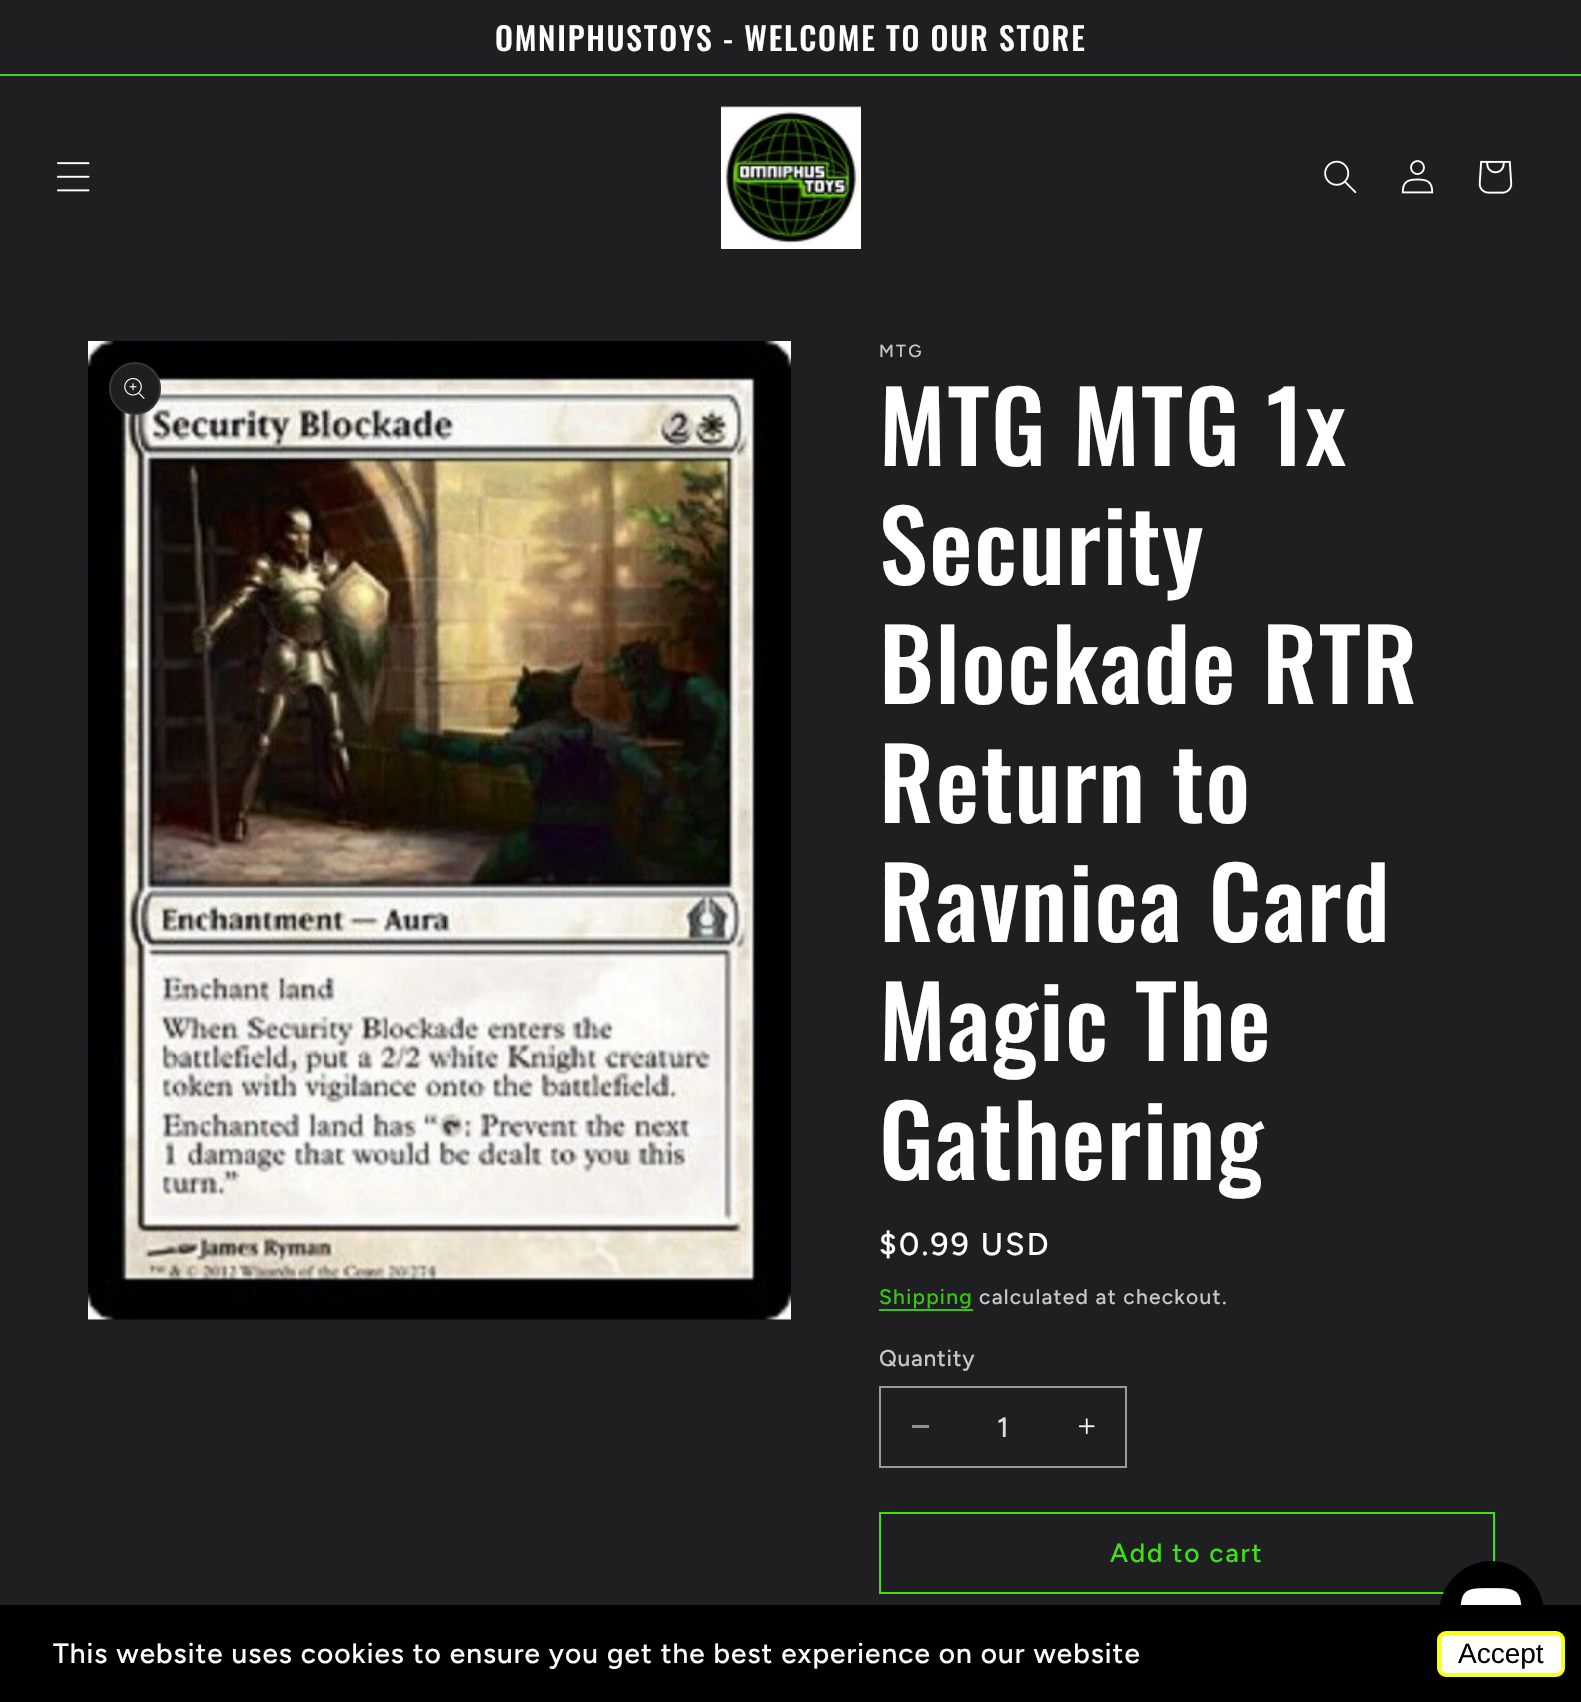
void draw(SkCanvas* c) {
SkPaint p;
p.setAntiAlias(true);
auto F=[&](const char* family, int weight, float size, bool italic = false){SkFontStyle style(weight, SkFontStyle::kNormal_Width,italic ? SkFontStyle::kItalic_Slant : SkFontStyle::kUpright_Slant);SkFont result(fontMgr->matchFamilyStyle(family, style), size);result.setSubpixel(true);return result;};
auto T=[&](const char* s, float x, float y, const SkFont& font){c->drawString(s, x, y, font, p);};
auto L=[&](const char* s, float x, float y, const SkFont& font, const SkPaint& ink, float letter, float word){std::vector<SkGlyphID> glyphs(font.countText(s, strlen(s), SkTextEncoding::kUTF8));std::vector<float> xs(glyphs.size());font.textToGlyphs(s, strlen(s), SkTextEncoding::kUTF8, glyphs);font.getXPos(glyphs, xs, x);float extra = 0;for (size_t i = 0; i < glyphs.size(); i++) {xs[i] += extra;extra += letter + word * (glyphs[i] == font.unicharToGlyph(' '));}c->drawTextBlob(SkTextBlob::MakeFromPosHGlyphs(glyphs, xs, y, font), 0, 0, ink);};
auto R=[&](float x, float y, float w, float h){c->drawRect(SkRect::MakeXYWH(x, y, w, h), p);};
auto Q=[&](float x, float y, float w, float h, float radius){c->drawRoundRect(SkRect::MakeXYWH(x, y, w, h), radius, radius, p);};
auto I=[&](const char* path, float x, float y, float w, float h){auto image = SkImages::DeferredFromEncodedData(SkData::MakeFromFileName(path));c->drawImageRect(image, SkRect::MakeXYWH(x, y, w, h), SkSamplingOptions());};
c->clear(0xff1f1f21);
auto f1 = F("Oswald",500,31.8);
p.setColor(0xffffffff);
L("OMNIPHUSTOYS - WELCOME TO OUR STORE",495,51,f1,p,1.75,0);
p.setColor(0xff3bd217);
R(0,74,1581,2);
I("1.png",57,162,33,30);
I("2.png",721,106,140,143);
I("3.png",1324,160,33,34);
I("4.png",1401,160,33,34);
I("5.png",1478,160,35,34);
I("6.png",88,341,703,979);
p.setColor(0xff1f1f21);
Q(109,362,52,53,26);
p.setStroke(true);
p.setStrokeWidth(2);
p.setColor(0x1affffff);
c->drawRoundRect(SkRect::MakeXYWH(110,363,50,51),25,25,p);
I("7.png",124,378,21,21);
auto f2 = F("Figtree",500,17.5);
p.setStroke(false);
p.setColor(0xffc7c7c8);
L("MTG",879,357,f2,p,2.25,0);
auto f3 = F("Oswald",500,98);
p.setColor(0xffffffff);
L("MTG MTG 1x",879,466,f3,p,1.5,0);
L("Security",879,585,f3,p,1.5,0);
L("Blockade RTR",879,704,f3,p,1.5,0);
L("Return to",879,823,f3,p,1.5,0);
L("Ravnica Card",879,942,f3,p,1.5,0);
L("Magic The",879,1061,f3,p,1.5,0);
L("Gathering",879,1180,f3,p,1.5,0);
auto f4 = F("Figtree",500,31.5);
L("$0.99 USD",879,1255,f4,p,2.25,0);
auto f5 = F("Figtree",500,21);
p.setColor(0xff39c518);
L("Shipping",879,1304,f5,p,1.25,0);
R(879,1309,94,2);
p.setColor(0xffc7c7c8);
L("calculated at checkout.",979,1304,f5,p,1.25,0);
auto f6 = F("Figtree",500,22.75);
L("Quantity",879,1366,f6,p,.75,0);
p.setColor(0xff8f8f90);
R(912,1425,17,3);
I("8.png",1078,1418,17,17);
p.setStroke(true);
p.setColor(0xff9a9a9b);
c->drawRect(SkRect::MakeXYWH(880,1387,246,80),p);
auto f7 = F("Figtree",500,28);
p.setStroke(false);
p.setColor(0xffddddde);
T("1",997,1437,f7);
p.setStroke(true);
p.setColor(0xff3de216);
c->drawRect(SkRect::MakeXYWH(880,1513,614,80),p);
auto f8 = F("Figtree",500,26.25);
p.setStroke(false);
L("Add to cart",1110,1562,f8,p,1.75,0);
p.setColor(0xff000000);
c->drawCircle(1491.5,1613.5,52.5,p);
I("9.png",1460,1588,62,17);
R(0,1605,1581,97);
p.setColor(0xffffffff);
L("This website uses cookies to ensure you get the best experience on our website",53,1663,f7,p,1.05,0);
c->drawRoundRect(SkRect::MakeXYWH(1439,1633,124,42),7,7,p);
p.setStroke(true);
p.setStrokeWidth(4);
p.setColor(0xfffaff16);
c->drawRoundRect(SkRect::MakeXYWH(1439,1633,124,42),7,7,p);
auto f9 = F("Liberation Sans",400,28);
p.setStroke(false);
p.setColor(0xff000000);
T("Accept",1458,1663,f9);
}
